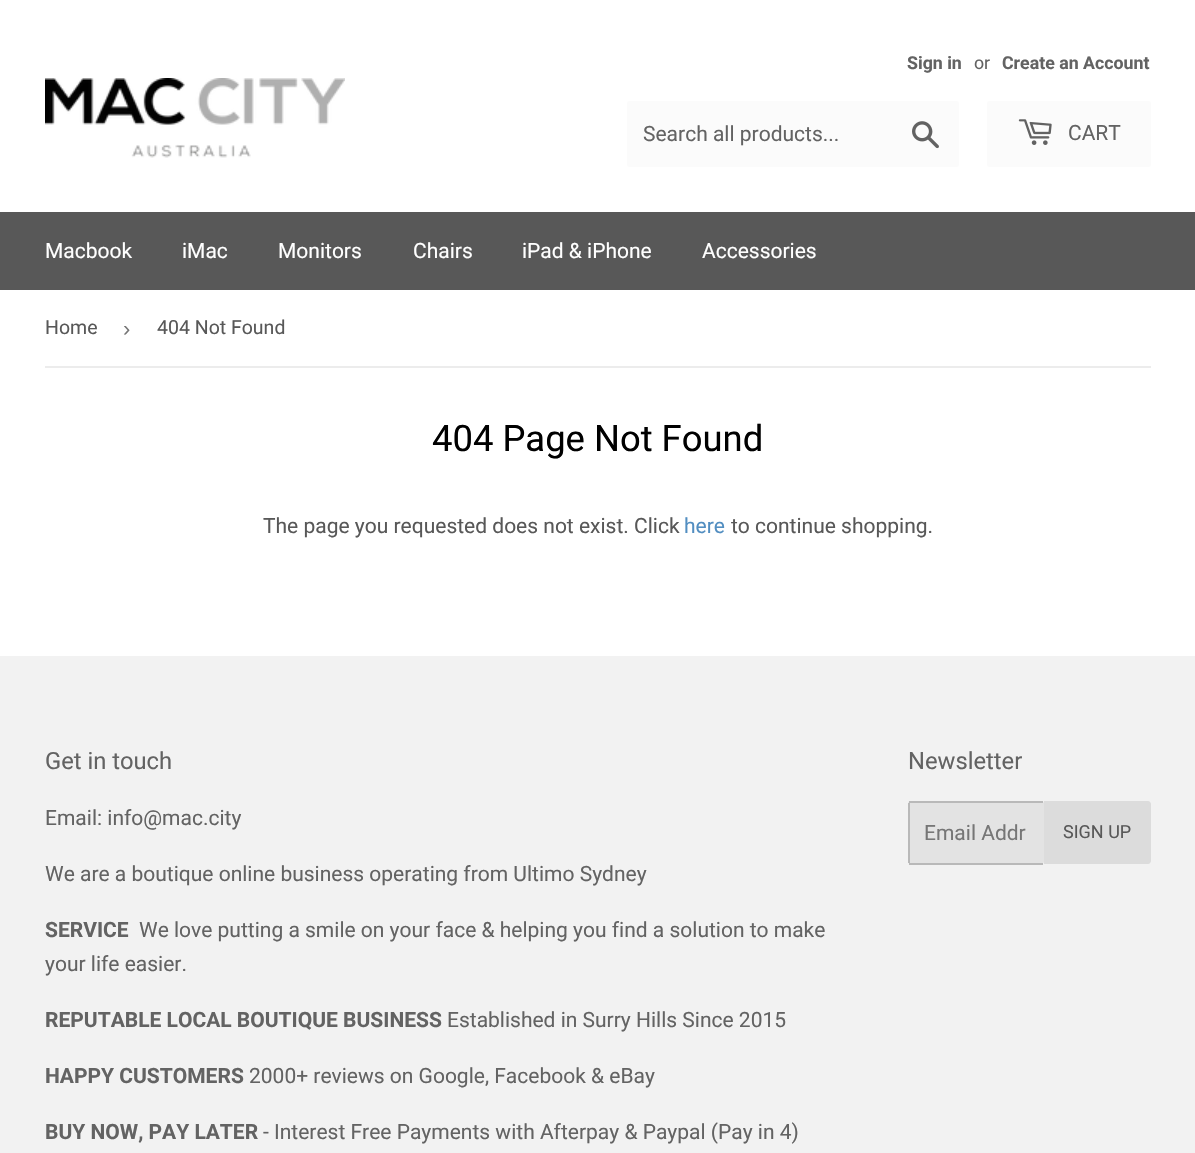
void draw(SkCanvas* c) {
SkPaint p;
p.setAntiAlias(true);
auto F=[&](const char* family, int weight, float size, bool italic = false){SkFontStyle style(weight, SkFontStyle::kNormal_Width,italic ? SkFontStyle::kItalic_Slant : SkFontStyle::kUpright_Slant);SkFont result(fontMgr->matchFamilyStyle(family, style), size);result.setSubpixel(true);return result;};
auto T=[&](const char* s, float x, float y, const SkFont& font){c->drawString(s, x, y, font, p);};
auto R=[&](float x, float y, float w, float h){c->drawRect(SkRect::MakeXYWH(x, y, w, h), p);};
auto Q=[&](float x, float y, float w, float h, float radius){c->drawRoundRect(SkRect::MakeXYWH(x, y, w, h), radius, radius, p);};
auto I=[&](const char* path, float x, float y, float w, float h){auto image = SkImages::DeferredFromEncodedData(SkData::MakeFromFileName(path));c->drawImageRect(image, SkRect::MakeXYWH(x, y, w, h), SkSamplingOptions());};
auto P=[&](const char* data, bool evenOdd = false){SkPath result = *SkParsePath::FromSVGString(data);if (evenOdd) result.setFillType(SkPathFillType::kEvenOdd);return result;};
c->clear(0xffffffff);
I("1.png",45,78,300,80);
auto f1 = F("Roboto",700,17.75);
p.setColor(0xff636363);
T("Sign in",907,69,f1);
auto f2 = F("Roboto",400,17.75);
T("or",974,69,f2);
T("Create an Account",1002,69,f1);
p.setColor(0xfffbfbfb);
Q(627,101,332,66,3);
auto f3 = F("Roboto",400,21);
p.setColor(0xff636363);
T("Search all products...",643,141,f3);
I("2.png",912,121,27,28);
p.setColor(0xfffbfbfb);
Q(987,101,164,66,3);
I("3.png",1018,119,34,26);
p.setColor(0xff636363);
T("CART",1068,140,f3);
p.setColor(0xff585858);
R(0,212,1195,78);
p.setColor(0xffffffff);
T("Macbook",45,258,f3);
T("iMac",182,258,f3);
T("Monitors",278,258,f3);
T("Chairs",413,258,f3);
T("iPad & iPhone",522,258,f3);
T("Accessories",702,258,f3);
p.setColor(0xffececec);
R(45,366,1106,2);
auto f4 = F("Roboto",400,19.5);
p.setColor(0xff585858);
T("Home",45,334,f4);
auto f5 = F("Liberation Sans",400,22);
p.setColor(0xff767676);
T("›",123,336,f5);
p.setColor(0xff585858);
T("404 Not Found",157,334,f4);
auto f6 = F("Roboto",400,36.4);
p.setColor(0xff000000);
T("404 Page Not Found",432,451,f6);
p.setColor(0xff585858);
T("The page you requested does not exist. Click",263,533,f3);
p.setColor(0xff528ec1);
T("here",684,533,f3);
p.setColor(0xff585858);
T("to continue shopping.",731,533,f3);
p.setColor(0xfff2f2f2);
R(0,656,1195,497);
auto f7 = F("Roboto",400,23.75);
p.setColor(0xff636363);
T("Get in touch",45,769,f7);
T("Email: info@mac.city",45,825,f3);
T("We are a boutique online business operating from Ultimo Sydney",45,881,f3);
auto f8 = F("Roboto",700,21);
T("SERVICE",45,937,f8);
T("We love putting a smile on your face & helping you find a solution to make",139,937,f3);
T("your life easier.",45,971,f3);
T("REPUTABLE LOCAL BOUTIQUE BUSINESS",45,1027,f8);
T("Established in Surry Hills Since 2015",447,1027,f3);
T("HAPPY CUSTOMERS",45,1083,f8);
T("2000+ reviews on Google, Facebook & eBay",249,1083,f3);
T("BUY NOW, PAY LATER",45,1139,f8);
T("- Interest Free Payments with Afterpay & Paypal (Pay in 4)",263,1139,f3);
T("Newsletter",908,769,f7);
p.setColor(0xffe3e3e3);
Q(908,801,136,63,3);
p.setColor(0xffb9b9b9);
R(909,801,134,2);
R(909,863,134,2);
R(908,803,2,60);
p.setColor(0xff767676);
T("Email Addr",924,840,f3);
p.setColor(0xffdcdcdc);
c->drawPath(P("M1044 801h104c1.5 0 3 1.5 3 3v57c0 1.5-1.5 3-3 3h-104z"),p);
auto f9 = F("Roboto",400,18);
p.setColor(0xff585858);
T("SIGN UP",1063,838,f9);
}
